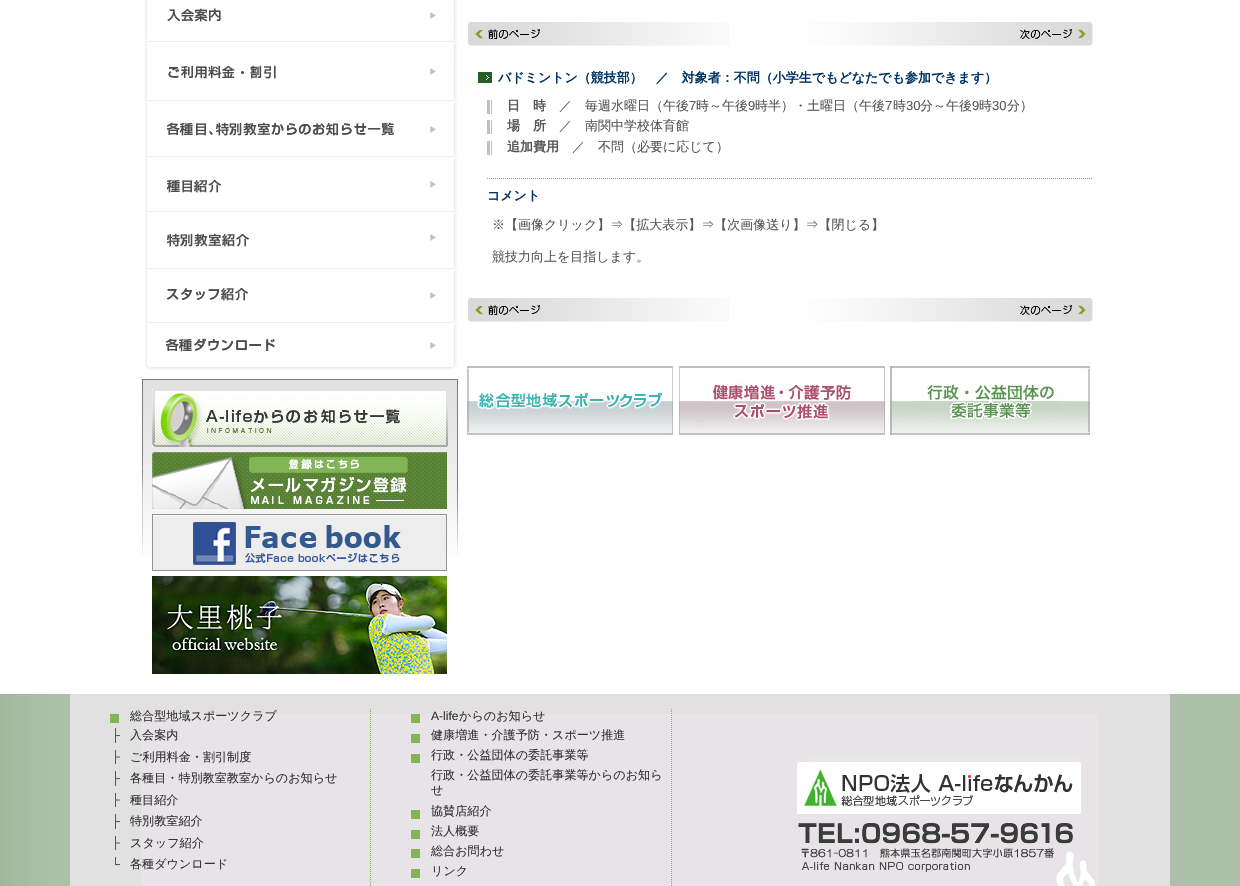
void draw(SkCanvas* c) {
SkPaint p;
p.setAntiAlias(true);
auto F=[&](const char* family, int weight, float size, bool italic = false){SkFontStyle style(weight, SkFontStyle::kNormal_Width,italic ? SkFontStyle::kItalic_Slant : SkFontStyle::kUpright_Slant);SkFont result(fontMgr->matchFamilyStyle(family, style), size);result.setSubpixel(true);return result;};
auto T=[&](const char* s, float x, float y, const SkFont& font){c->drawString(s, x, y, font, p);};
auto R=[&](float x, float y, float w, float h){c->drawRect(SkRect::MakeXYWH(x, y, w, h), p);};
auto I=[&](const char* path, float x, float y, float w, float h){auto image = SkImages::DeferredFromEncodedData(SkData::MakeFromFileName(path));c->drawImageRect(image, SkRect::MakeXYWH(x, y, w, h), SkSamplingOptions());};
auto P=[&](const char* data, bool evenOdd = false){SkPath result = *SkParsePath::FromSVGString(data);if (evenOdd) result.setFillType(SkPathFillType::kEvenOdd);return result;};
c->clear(0xffffffff);
I("1.png",144,0,313,41);
I("2.png",144,41,313,60);
I("3.png",145,101,312,56);
I("4.png",145,157,312,55);
I("5.png",145,212,312,57);
I("6.png",145,269,312,54);
I("7.png",145,323,312,47);
I("8.png",468,22,261,24);
I("9.png",785,22,308,24);
I("10.png",478,72,14,11);
auto f1 = F("WenQuanYi Zen Hei",700,13);
p.setColor(0xff003366);
T("バドミントン（競技部）　／　対象者：不問（小学生でもどなたでも参加できます）",498,82,f1);
I("11.png",487,100,5,14);
p.setColor(0xff575757);
T("日　時",507,110,f1);
auto f2 = F("WenQuanYi Zen Hei",500,13);
T("／　毎週水曜日（午後",559,110,f2);
auto f3 = F("Liberation Sans",400,13);
T("7",689,110,f3);
T("時～午後",696,110,f2);
T("9",748,110,f3);
T("時半）・土曜日（午後",755,110,f2);
T("7",885,110,f3);
T("時",893,110,f2);
T("30",906,110,f3);
T("分～午後",920,110,f2);
T("9",972,110,f3);
T("時",979,110,f2);
T("30",992,110,f3);
T("分）",1007,110,f2);
I("11.png",487,120,5,14);
T("場　所",507,130,f1);
T("／　南関中学校体育館",559,130,f2);
I("11.png",487,141,5,14);
T("追加費用",507,151,f1);
T("／　不問（必要に応じて）",572,151,f2);
I("12.png",487,178,605,1);
p.setColor(0xff003366);
T("コメント",487,200,f1);
p.setColor(0xff575757);
T("※【画像クリック】⇒【拡大表示】⇒【次画像送り】⇒【閉じる】",492,229,f2);
T("競技力向上を目指します。",492,261,f2);
I("8.png",468,298,261,24);
I("9.png",785,298,308,24);
I("13.png",467,366,206,69);
I("14.png",679,366,206,69);
I("15.png",890,366,200,69);
I("16.png",142,379,316,176);
I("17.png",152,389,296,58);
I("18.png",152,452,295,57);
I("19.png",152,514,295,57);
I("20.png",152,576,295,98);
{
const SkColor colors[] = {0xffacc0a9,0xffacc0a9,0xffa1b79d};
const float stops[] = {0,.96,1};
const SkPoint ends[] = {{1240,804}, {0,804}};
p.setShader(SkGradientShader::MakeLinear(ends, colors, stops, 3, SkTileMode::kClamp));
p.setAlpha(255);
}
R(0,694,1240,192);
p.setShader(nullptr);
p.setColor(0xffe1e1e1);
R(70,694,1100,192);
I("21.png",141,714,958,172);
p.setStroke(true);
p.setStrokeWidth(1);
p.setColor(0xff82b555);
p.setPathEffect(SkDashPathEffect::Make({{1,1}}, 0));
c->drawPath(P("M370.5 709v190"),p);
p.setPathEffect(nullptr);
p.setStroke(false);
R(110,714,9,9);
auto f4 = F("WenQuanYi Zen Hei",500,12.1);
p.setColor(0xff333333);
T("総合型地域スポーツクラブ",130,720,f4);
I("22.png",115,728,5,15);
T("入会案内",130,739,f4);
I("23.png",115,750,5,14);
T("ご利用料金・割引制度",130,761,f4);
I("22.png",115,771,5,15);
T("各種目・特別教室教室からのお知らせ",130,782,f4);
I("23.png",115,793,5,14);
T("種目紹介",130,804,f4);
I("24.png",115,814,5,15);
T("特別教室紹介",130,825,f4);
I("23.png",115,836,5,14);
T("スタッフ紹介",130,847,f4);
I("25.png",115,857,5,9);
T("各種ダウンロード",130,868,f4);
p.setStroke(true);
p.setColor(0xff82b555);
p.setPathEffect(SkDashPathEffect::Make({{1,1}}, 0));
c->drawPath(P("M671.5 709v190"),p);
p.setPathEffect(nullptr);
p.setStroke(false);
R(411,714,9,9);
auto f5 = F("Liberation Sans",400,12.1);
p.setColor(0xff333333);
T("A-life",431,720,f5);
T("からのお知らせ",459,720,f4);
p.setColor(0xff82b555);
R(411,734,9,9);
p.setColor(0xff333333);
T("健康増進・介護予防・スポーツ推進",431,739,f4);
p.setColor(0xff82b555);
R(411,754,9,9);
p.setColor(0xff333333);
T("行政・公益団体の委託事業等",431,759,f4);
T("行政・公益団体の委託事業等からのお知ら",431,779,f4);
T("せ",431,794,f4);
p.setColor(0xff82b555);
R(411,810,9,9);
p.setColor(0xff333333);
T("協賛店紹介",431,815,f4);
p.setColor(0xff82b555);
R(411,830,9,9);
p.setColor(0xff333333);
T("法人概要",431,835,f4);
p.setColor(0xff82b555);
R(411,849,9,9);
p.setColor(0xff333333);
T("総合お問わせ",431,855,f4);
p.setColor(0xff82b555);
R(411,869,9,9);
p.setColor(0xff333333);
T("リンク",431,875,f4);
}
